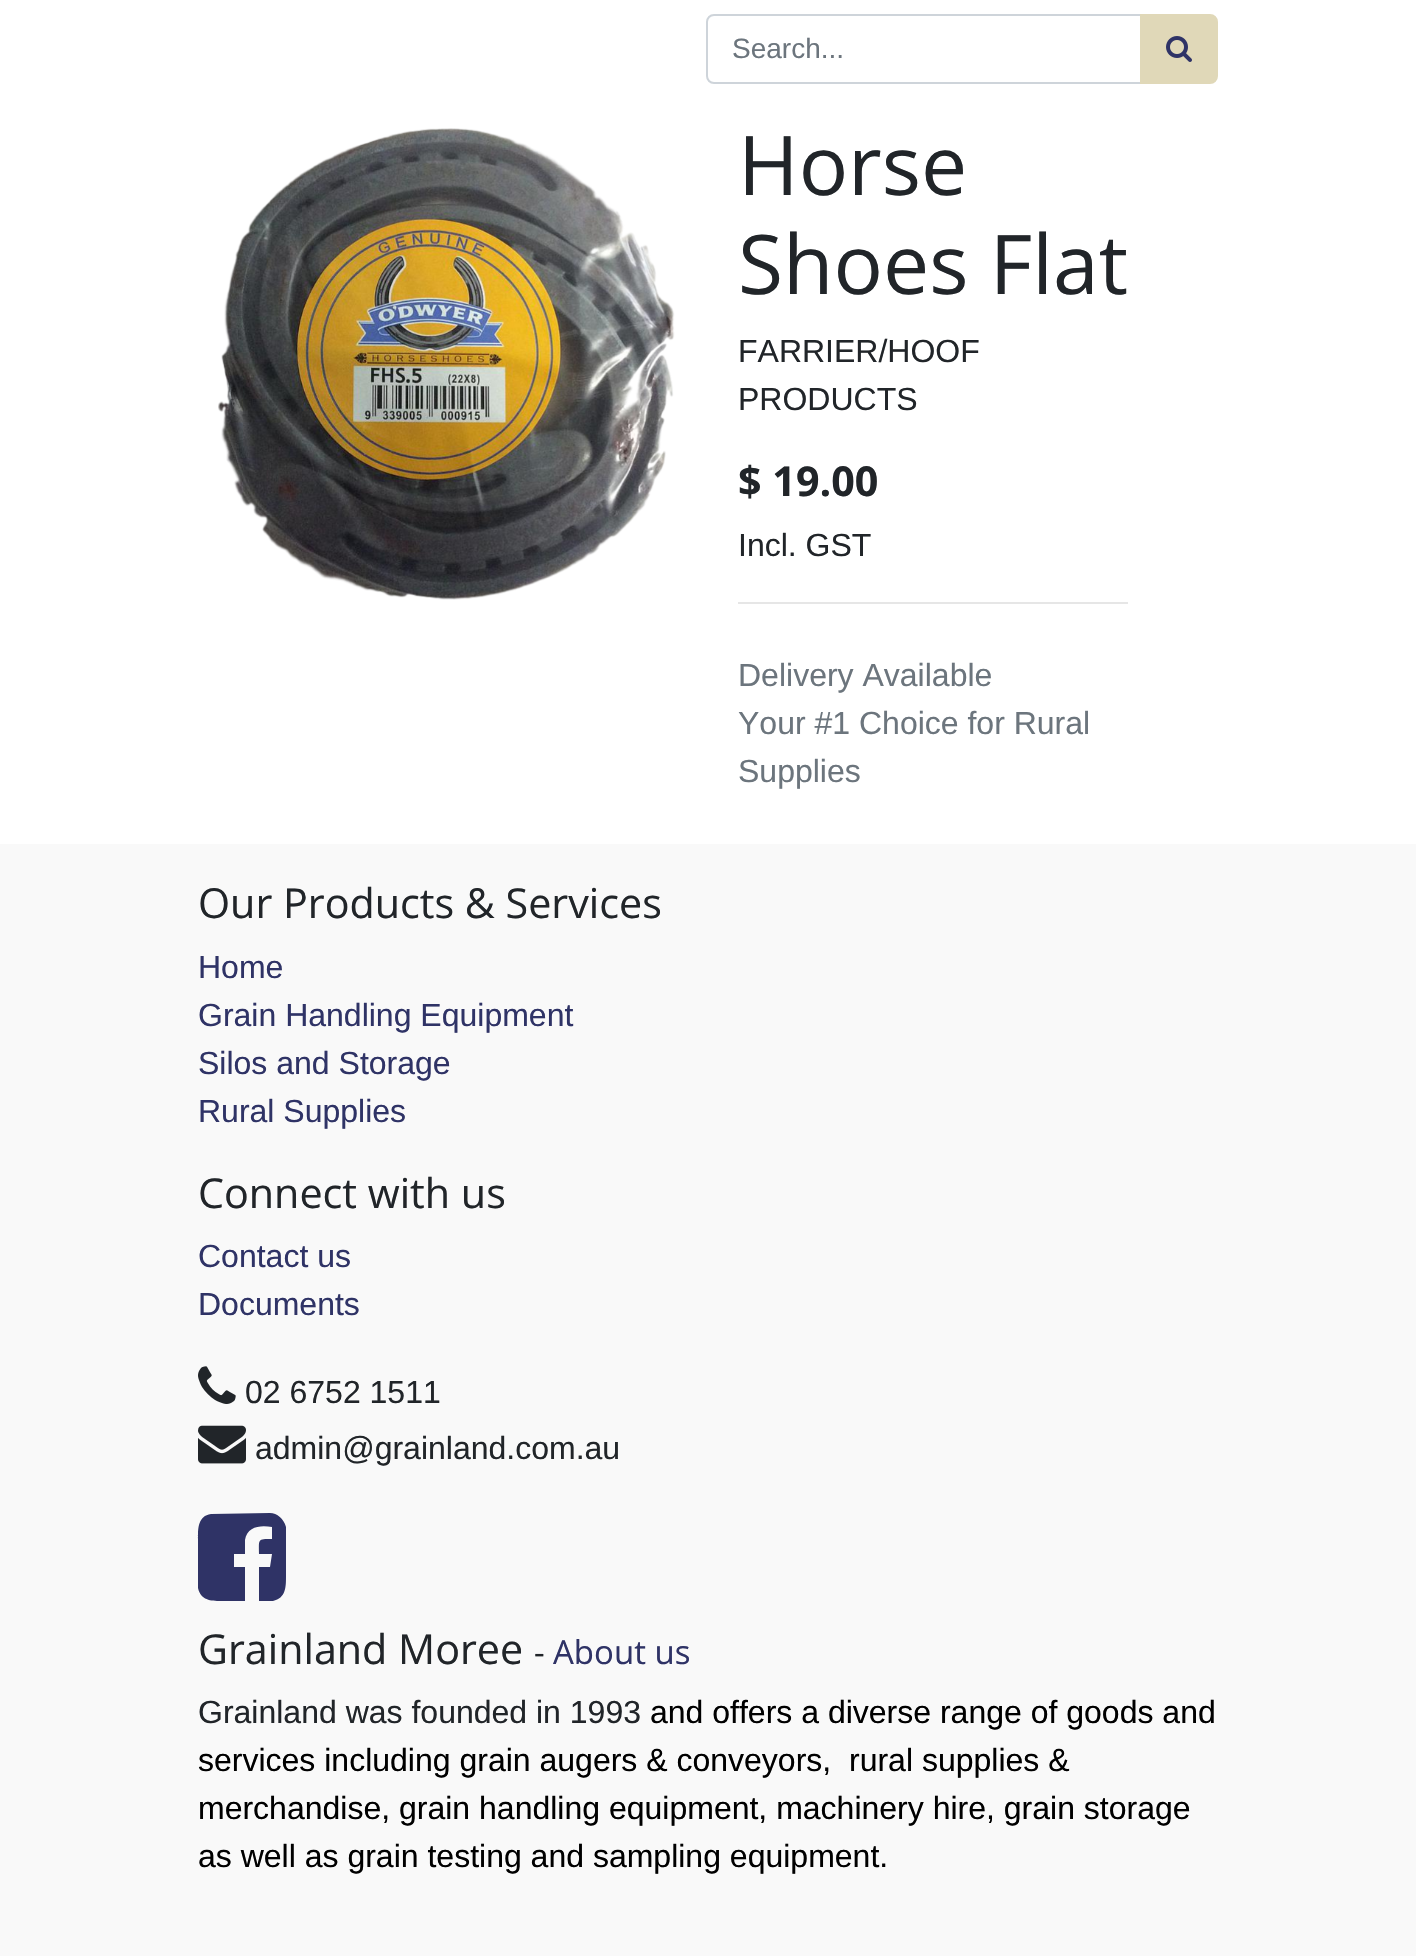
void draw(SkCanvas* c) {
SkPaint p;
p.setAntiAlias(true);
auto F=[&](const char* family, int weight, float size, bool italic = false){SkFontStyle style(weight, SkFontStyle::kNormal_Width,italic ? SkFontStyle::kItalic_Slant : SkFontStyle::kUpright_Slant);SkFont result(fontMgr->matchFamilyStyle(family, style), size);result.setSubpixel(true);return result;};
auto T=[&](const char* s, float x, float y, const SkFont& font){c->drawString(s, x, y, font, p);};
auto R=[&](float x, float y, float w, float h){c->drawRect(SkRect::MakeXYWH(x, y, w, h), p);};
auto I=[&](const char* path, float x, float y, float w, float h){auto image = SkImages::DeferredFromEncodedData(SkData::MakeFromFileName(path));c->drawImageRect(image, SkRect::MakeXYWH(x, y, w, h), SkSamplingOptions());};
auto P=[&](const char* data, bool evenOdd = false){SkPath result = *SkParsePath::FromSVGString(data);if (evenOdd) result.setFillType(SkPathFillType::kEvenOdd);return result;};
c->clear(0xffffffff);
p.setStroke(true);
p.setStrokeWidth(2);
p.setColor(0xffced4da);
c->drawPath(P("M714 15h427v68h-427c-4 0-7-3-7-7v-54c0-4 3-7 7-7z"),p);
auto f1 = F("Liberation Sans",400,28);
p.setStroke(false);
p.setColor(0xff6c757d);
T("Search...",732,58,f1);
p.setColor(0xffe0d8b8);
c->drawPath(P("M1141 15h69c4 0 7 3 7 7v54c0 4-3 7-7 7h-69z"),p);
p.setStroke(true);
c->drawPath(P("M1141 15h69c4 0 7 3 7 7v54c0 4-3 7-7 7h-69z"),p);
I("1.png",1166,36,26,26);
I("2.png",218,128,457,472);
auto f2 = F("Open Sans",400,82.25);
p.setStroke(false);
p.setColor(0xff212529);
T("Horse",738,195,f2);
T("Shoes Flat",738,294,f2);
auto f3 = F("Liberation Sans",400,32);
T("FARRIER/HOOF",738,362,f3);
T("PRODUCTS",738,410,f3);
auto f4 = F("Open Sans",700,41.25);
T("$ 19.00",738,496,f4);
T("Incl. GST",738,556,f3);
p.setColor(0xffe6e6e6);
R(738,602,390,2);
p.setColor(0xff6c757d);
T("Delivery Available",738,686,f3);
T("Your #1 Choice for Rural",738,734,f3);
T("Supplies",738,782,f3);
p.setColor(0xfff9f9f9);
R(0,844,1416,1112);
auto f5 = F("Open Sans",400,41.25);
p.setColor(0xff212529);
T("Our Products & Services",198,918,f5);
p.setColor(0xff2f3366);
T("Home",198,978,f3);
T("Grain Handling Equipment",198,1026,f3);
T("Silos and Storage",198,1074,f3);
T("Rural Supplies",198,1122,f3);
p.setColor(0xff212529);
T("Connect with us",198,1208,f5);
p.setColor(0xff2f3366);
T("Contact us",198,1267,f3);
T("Documents",198,1315,f3);
I("3.png",198,1366,38,38);
p.setColor(0xff212529);
T("02 6752 1511",245,1403,f3);
I("4.png",198,1425,48,39);
T("admin@grainland.com.au",255,1459,f3);
p.setColor(0xff2f3366);
c->drawPath(P("M270 1513c7 0 14 6 16 14v49c0 11 0 22-13 25h-14v-34h11l2-13h-13c0-15-2-15 13-15v-12c-11-2-25-1-27 13v14h-11v13h11v34h-20c-11 0-24 1-27-13v-49c0-11 0-23 13-25z"),p);
p.setColor(0xff212529);
T("Grainland Moree",198,1664,f5);
auto f6 = F("Open Sans",400,33);
T("-",534,1664,f6);
p.setColor(0xff2f3366);
T("About us",553,1664,f6);
p.setColor(0xff212529);
T("Grainland was founded in 1993",198,1723,f3);
p.setColor(0xff000000);
T("and offers a diverse range of goods and",650,1723,f3);
T("services including grain augers & conveyors,",198,1771,f3);
T("rural supplies &",849,1771,f3);
T("merchandise, grain handling equipment, machinery hire, grain storage",198,1819,f3);
T("as well as grain testing and sampling equipment.",198,1867,f3);
}
